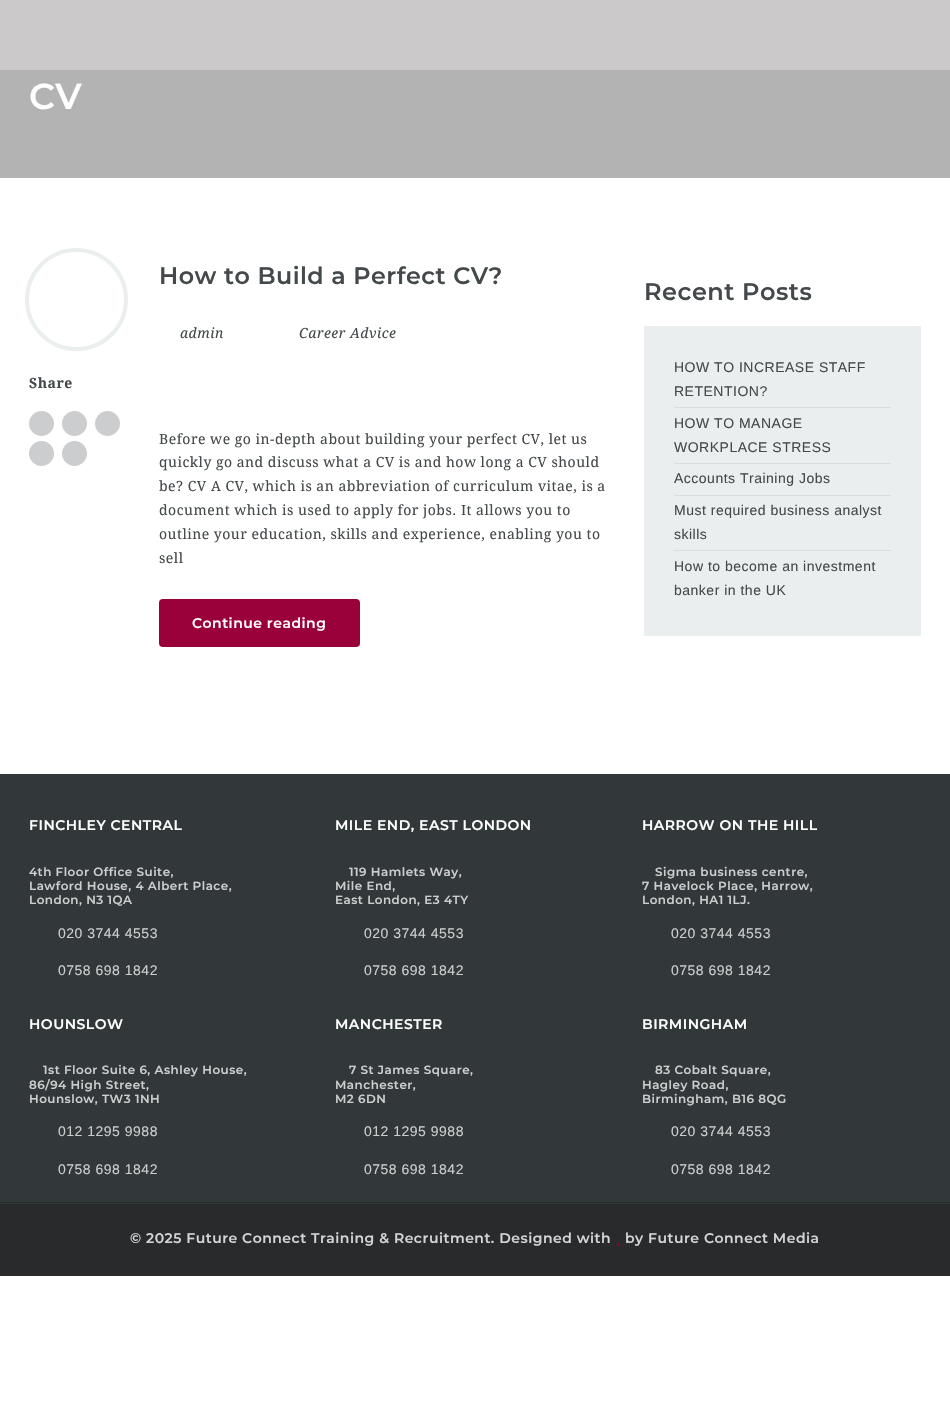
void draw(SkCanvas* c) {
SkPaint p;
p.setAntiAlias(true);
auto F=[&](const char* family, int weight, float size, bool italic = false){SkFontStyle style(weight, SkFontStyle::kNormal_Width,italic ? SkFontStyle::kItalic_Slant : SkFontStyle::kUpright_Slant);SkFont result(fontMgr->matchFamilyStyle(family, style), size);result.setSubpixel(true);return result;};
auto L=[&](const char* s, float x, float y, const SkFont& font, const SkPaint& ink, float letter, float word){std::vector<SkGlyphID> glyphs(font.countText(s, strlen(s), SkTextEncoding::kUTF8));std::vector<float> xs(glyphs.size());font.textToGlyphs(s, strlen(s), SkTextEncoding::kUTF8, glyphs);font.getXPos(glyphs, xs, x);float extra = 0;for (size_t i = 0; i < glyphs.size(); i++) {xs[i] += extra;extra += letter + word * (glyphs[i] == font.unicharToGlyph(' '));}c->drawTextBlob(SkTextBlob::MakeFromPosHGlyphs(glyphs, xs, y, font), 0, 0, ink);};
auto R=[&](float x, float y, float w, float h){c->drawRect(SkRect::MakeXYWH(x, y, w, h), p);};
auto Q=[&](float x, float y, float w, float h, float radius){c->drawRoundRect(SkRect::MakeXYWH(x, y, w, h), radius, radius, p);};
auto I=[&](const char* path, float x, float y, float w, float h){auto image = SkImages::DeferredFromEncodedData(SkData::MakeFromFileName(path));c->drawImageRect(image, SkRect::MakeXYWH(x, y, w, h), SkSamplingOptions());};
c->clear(0xffffffff);
p.setColor(0xffcbc9c9);
R(0,0,950,70);
p.setColor(0xffb3b3b3);
R(0,70,950,108);
auto f1 = F("Montserrat",600,36);
p.setColor(0xffffffff);
L("CV",29,109,f1,p,.5,0);
auto f2 = F("Montserrat",600,23.75);
p.setColor(0xff44494b);
L("How to Build a Perfect CV?",159,284,f2,p,.5,0);
auto f3 = F("Droid Serif",400,14,true);
L("admin",180,338,f3,p,.5,0);
L("Career Advice",299,338,f3,p,.5,0);
p.setStroke(true);
p.setStrokeWidth(4);
p.setColor(0xffebeeef);
c->drawCircle(76.5,299.5,49.5,p);
auto f4 = F("Droid Serif",700,14);
p.setStroke(false);
p.setColor(0xff44494b);
L("Share",29,388,f4,p,.5,0);
p.setColor(0xffcccdce);
c->drawCircle(41.5,423.5,12.5,p);
c->drawCircle(74.5,423.5,12.5,p);
c->drawCircle(107.5,423.5,12.5,p);
c->drawCircle(41.5,453.5,12.5,p);
c->drawCircle(74.5,453.5,12.5,p);
auto f5 = F("Droid Serif",400,14);
p.setColor(0xff44494b);
L("Before we go in-depth about building your perfect CV, let us",159,444,f5,p,.5,0);
L("quickly go and discuss what a CV is and how long a CV should",159,467,f5,p,.5,0);
L("be? CV A CV, which is an abbreviation of curriculum vitae, is a",159,491,f5,p,.5,0);
L("document which is used to apply for jobs. It allows you to",159,515,f5,p,.5,0);
L("outline your education, skills and experience, enabling you to",159,539,f5,p,.5,0);
L("sell",159,563,f5,p,.5,0);
p.setColor(0xff9a0039);
Q(159,599,201,48,4);
auto f6 = F("Montserrat",600,14);
p.setColor(0xffffffff);
L("Continue reading",192,628,f6,p,.5,0);
auto f7 = F("Montserrat",600,24);
p.setColor(0xff44494b);
L("Recent Posts",644,300,f7,p,.5,0);
p.setColor(0xffebeeef);
R(644,326,277,310);
p.setColor(0xffdaddde);
R(674,407,217,1);
auto f8 = F("Liberation Sans",400,14);
p.setColor(0xff44494b);
L("HOW TO INCREASE STAFF",674,372,f8,p,.5,0);
L("RETENTION?",674,396,f8,p,.5,0);
p.setColor(0xffdaddde);
R(674,463,217,1);
p.setColor(0xff44494b);
L("HOW TO MANAGE",674,428,f8,p,.5,0);
L("WORKPLACE STRESS",674,452,f8,p,.5,0);
p.setColor(0xffdaddde);
R(674,495,217,1);
p.setColor(0xff44494b);
L("Accounts Training Jobs",674,483,f8,p,.5,0);
p.setColor(0xffdaddde);
R(674,550,217,1);
p.setColor(0xff44494b);
L("Must required business analyst",674,515,f8,p,.5,0);
L("skills",674,539,f8,p,.5,0);
L("How to become an investment",674,571,f8,p,.5,0);
L("banker in the UK",674,595,f8,p,.5,0);
p.setColor(0xff32373a);
R(0,774,950,428);
p.setColor(0xffffffff);
L("FINCHLEY CENTRAL",29,830,f6,p,.5,0);
auto f9 = F("Montserrat",600,11.9);
p.setColor(0xffcccdce);
L("4th Floor Office Suite,",29,876,f9,p,.5,0);
L("Lawford House, 4 Albert Place,",29,890,f9,p,.5,0);
L("London, N3 1QA",29,904,f9,p,.5,0);
L("020 3744 4553",58,938,f8,p,.5,0);
L("0758 698 1842",58,975,f8,p,.5,0);
p.setColor(0xffffffff);
L("HOUNSLOW",29,1029,f6,p,.5,0);
p.setColor(0xffcccdce);
L("1st Floor Suite 6, Ashley House,",43,1074,f9,p,.5,0);
L("86/94 High Street,",29,1089,f9,p,.5,0);
L("Hounslow, TW3 1NH",29,1103,f9,p,.5,0);
L("012 1295 9988",58,1136,f8,p,.5,0);
L("0758 698 1842",58,1174,f8,p,.5,0);
p.setColor(0xffffffff);
L("MILE END, EAST LONDON",335,830,f6,p,.5,0);
p.setColor(0xffcccdce);
L("119 Hamlets Way,",349,876,f9,p,.5,0);
L("Mile End,",335,890,f9,p,.5,0);
L("East London, E3 4TY",335,904,f9,p,.5,0);
L("020 3744 4553",364,938,f8,p,.5,0);
L("0758 698 1842",364,975,f8,p,.5,0);
p.setColor(0xffffffff);
L("MANCHESTER",335,1029,f6,p,.5,0);
p.setColor(0xffcccdce);
L("7 St James Square,",349,1074,f9,p,.5,0);
L("Manchester,",335,1089,f9,p,.5,0);
L("M2 6DN",335,1103,f9,p,.5,0);
L("012 1295 9988",364,1136,f8,p,.5,0);
L("0758 698 1842",364,1174,f8,p,.5,0);
p.setColor(0xffffffff);
L("HARROW ON THE HILL",642,830,f6,p,.5,0);
p.setColor(0xffcccdce);
L("Sigma business centre,",655,876,f9,p,.5,0);
L("7 Havelock Place, Harrow,",642,890,f9,p,.5,0);
L("London, HA1 1LJ.",642,904,f9,p,.5,0);
L("020 3744 4553",671,938,f8,p,.5,0);
L("0758 698 1842",671,975,f8,p,.5,0);
p.setColor(0xffffffff);
L("BIRMINGHAM",642,1029,f6,p,.5,0);
p.setColor(0xffcccdce);
L("83 Cobalt Square,",655,1074,f9,p,.5,0);
L("Hagley Road,",642,1089,f9,p,.5,0);
L("Birmingham, B16 8QG",642,1103,f9,p,.5,0);
L("020 3744 4553",671,1136,f8,p,.5,0);
L("0758 698 1842",671,1174,f8,p,.5,0);
p.setColor(0xff292a2c);
R(0,1202,950,74);
p.setColor(0xff32373a);
R(0,1203,950,1);
p.setColor(0xffd4d4d5);
L("© 2025 Future Connect Training & Recruitment. Designed with",130,1243,f6,p,.5,0);
I("1.png",617,1243,3,4);
L("by Future Connect Media",625,1243,f6,p,.5,0);
}
